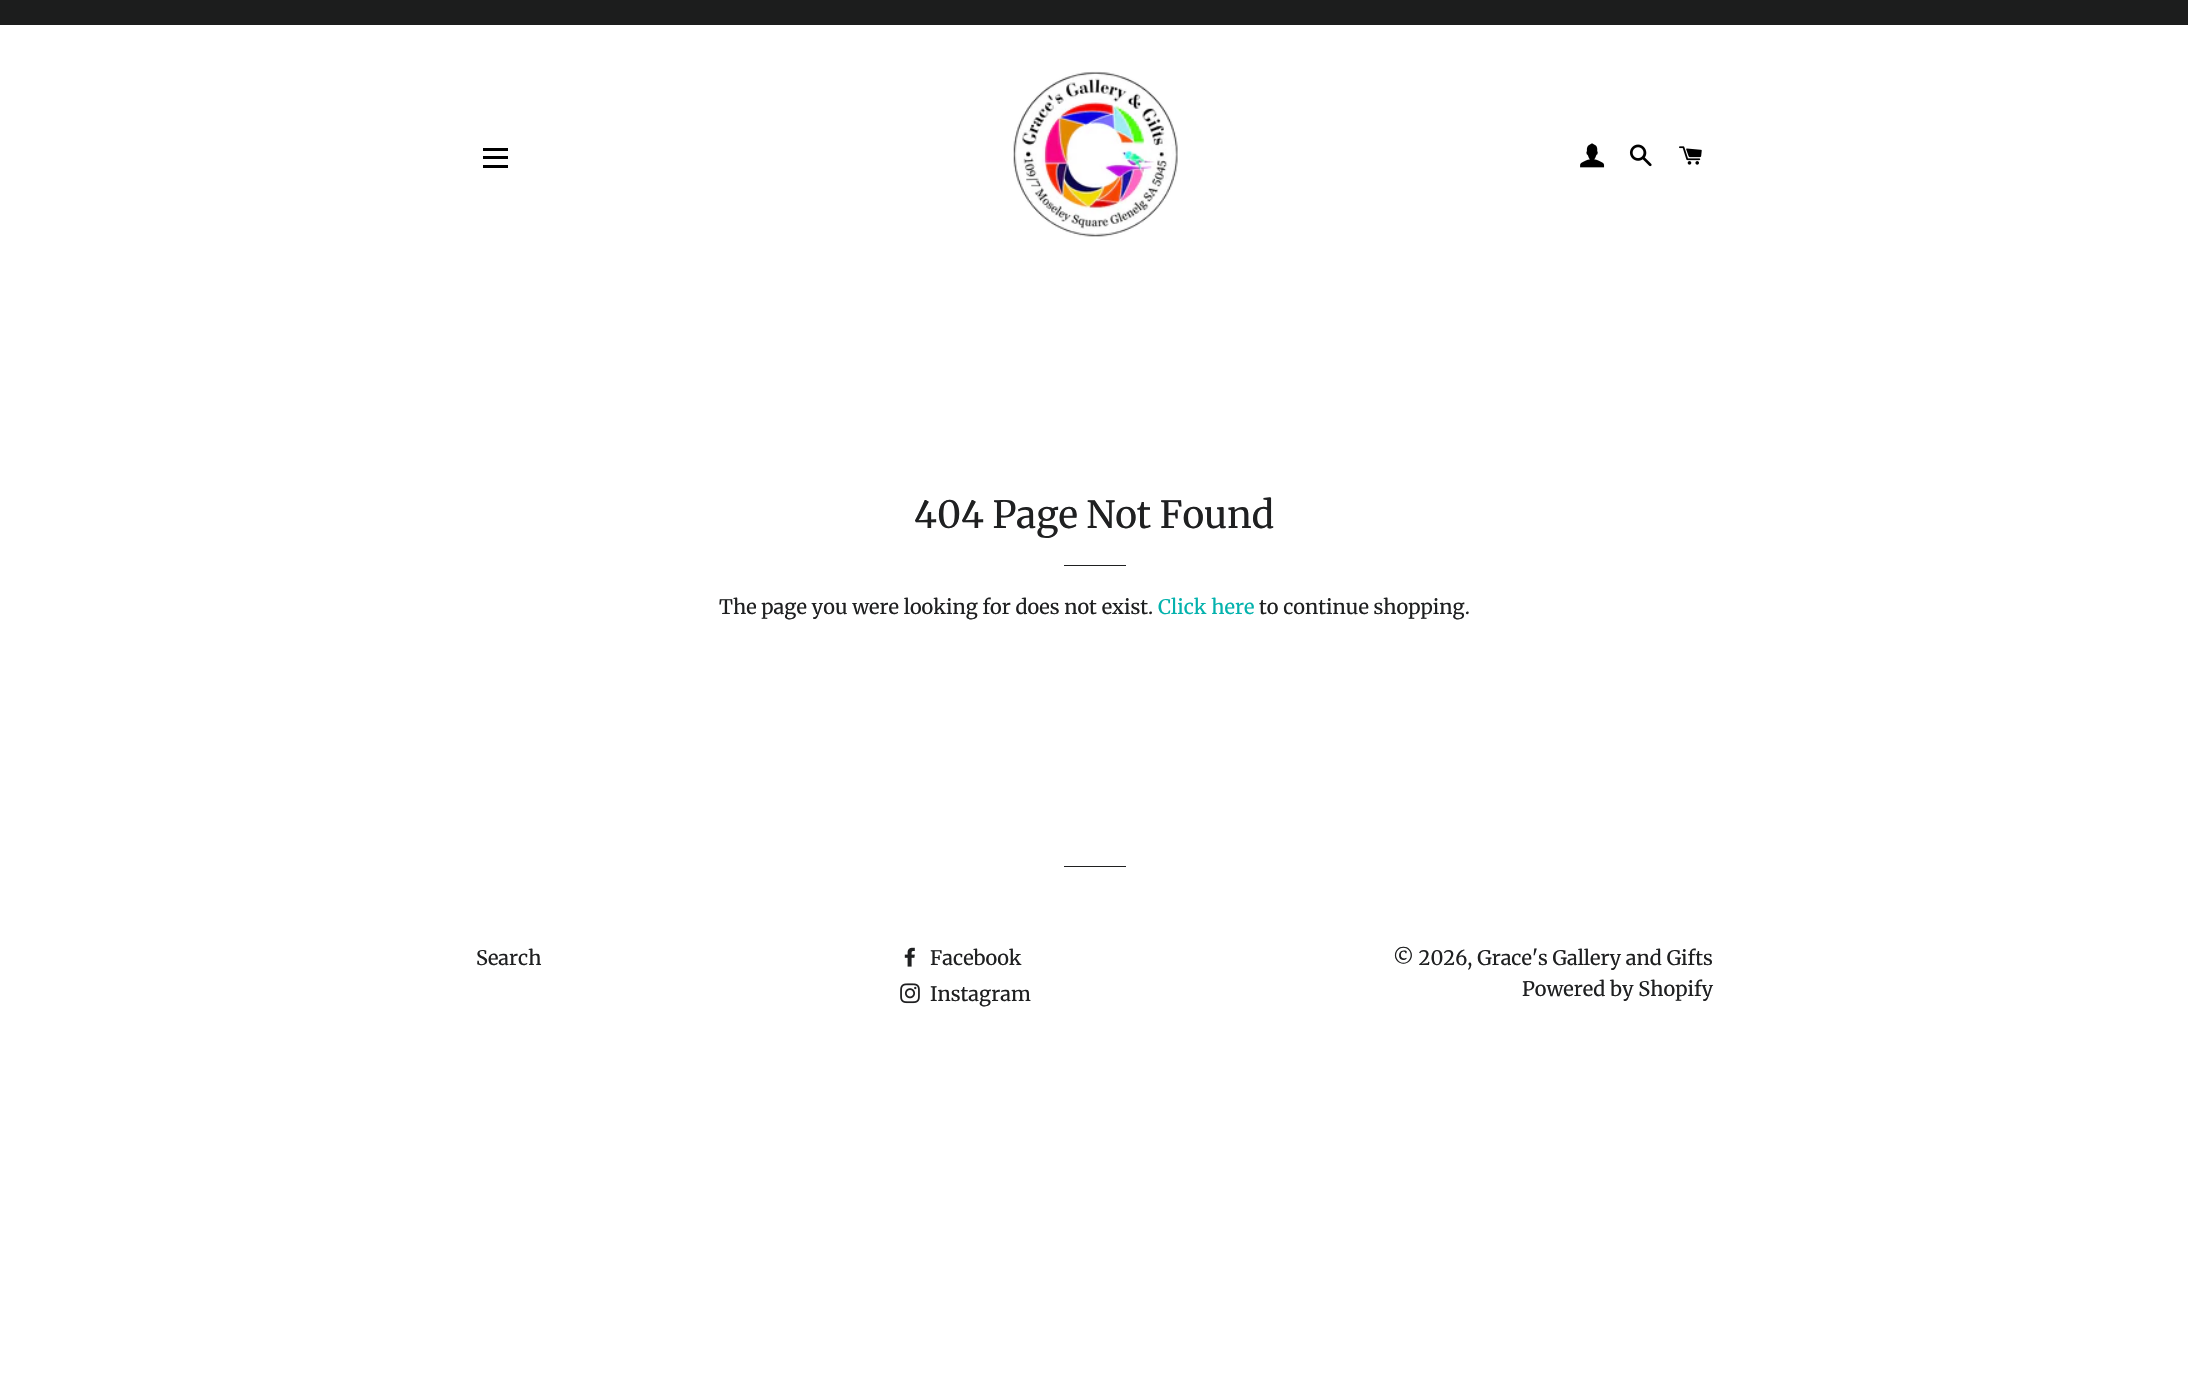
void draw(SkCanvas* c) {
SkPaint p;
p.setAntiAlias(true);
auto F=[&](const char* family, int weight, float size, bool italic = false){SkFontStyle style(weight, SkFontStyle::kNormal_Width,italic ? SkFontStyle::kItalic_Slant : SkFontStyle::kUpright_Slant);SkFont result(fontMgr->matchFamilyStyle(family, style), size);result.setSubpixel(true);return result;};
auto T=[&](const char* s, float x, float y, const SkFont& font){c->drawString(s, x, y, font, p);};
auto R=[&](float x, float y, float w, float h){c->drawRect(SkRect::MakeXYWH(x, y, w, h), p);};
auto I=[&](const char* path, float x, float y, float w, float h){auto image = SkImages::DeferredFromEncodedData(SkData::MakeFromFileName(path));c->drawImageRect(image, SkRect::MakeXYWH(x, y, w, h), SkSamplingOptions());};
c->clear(0xffffffff);
p.setColor(0xff1c1d1d);
R(0,0,2188,25);
p.setColor(0xff000000);
R(483,148,25,3);
R(483,156,25,3);
R(483,165,25,3);
I("1.png",1013,71,165,166);
I("2.png",1580,143,25,25);
I("3.png",1629,144,23,23);
I("4.png",1679,146,23,19);
auto f1 = F("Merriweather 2",400,37.5);
p.setColor(0xff1f2021);
T("404 Page Not Found",914,528,f1);
R(1064,565,62,1);
auto f2 = F("Merriweather",400,20);
T("The page you were looking for does not exist.",719,614,f2);
p.setColor(0xff03b2ad);
T("Click here",1158,614,f2);
p.setColor(0xff1f2021);
T("to continue shopping.",1259,614,f2);
R(1064,866,62,1);
T("Search",476,965,f2);
I("5.png",904,947,11,20);
T("Facebook",930,965,f2);
I("6.png",900,983,20,21);
T("Instagram",930,1001,f2);
T("© 2026, Grace's Gallery and Gifts",1393,965,f2);
T("Powered by Shopify",1522,996,f2);
}
